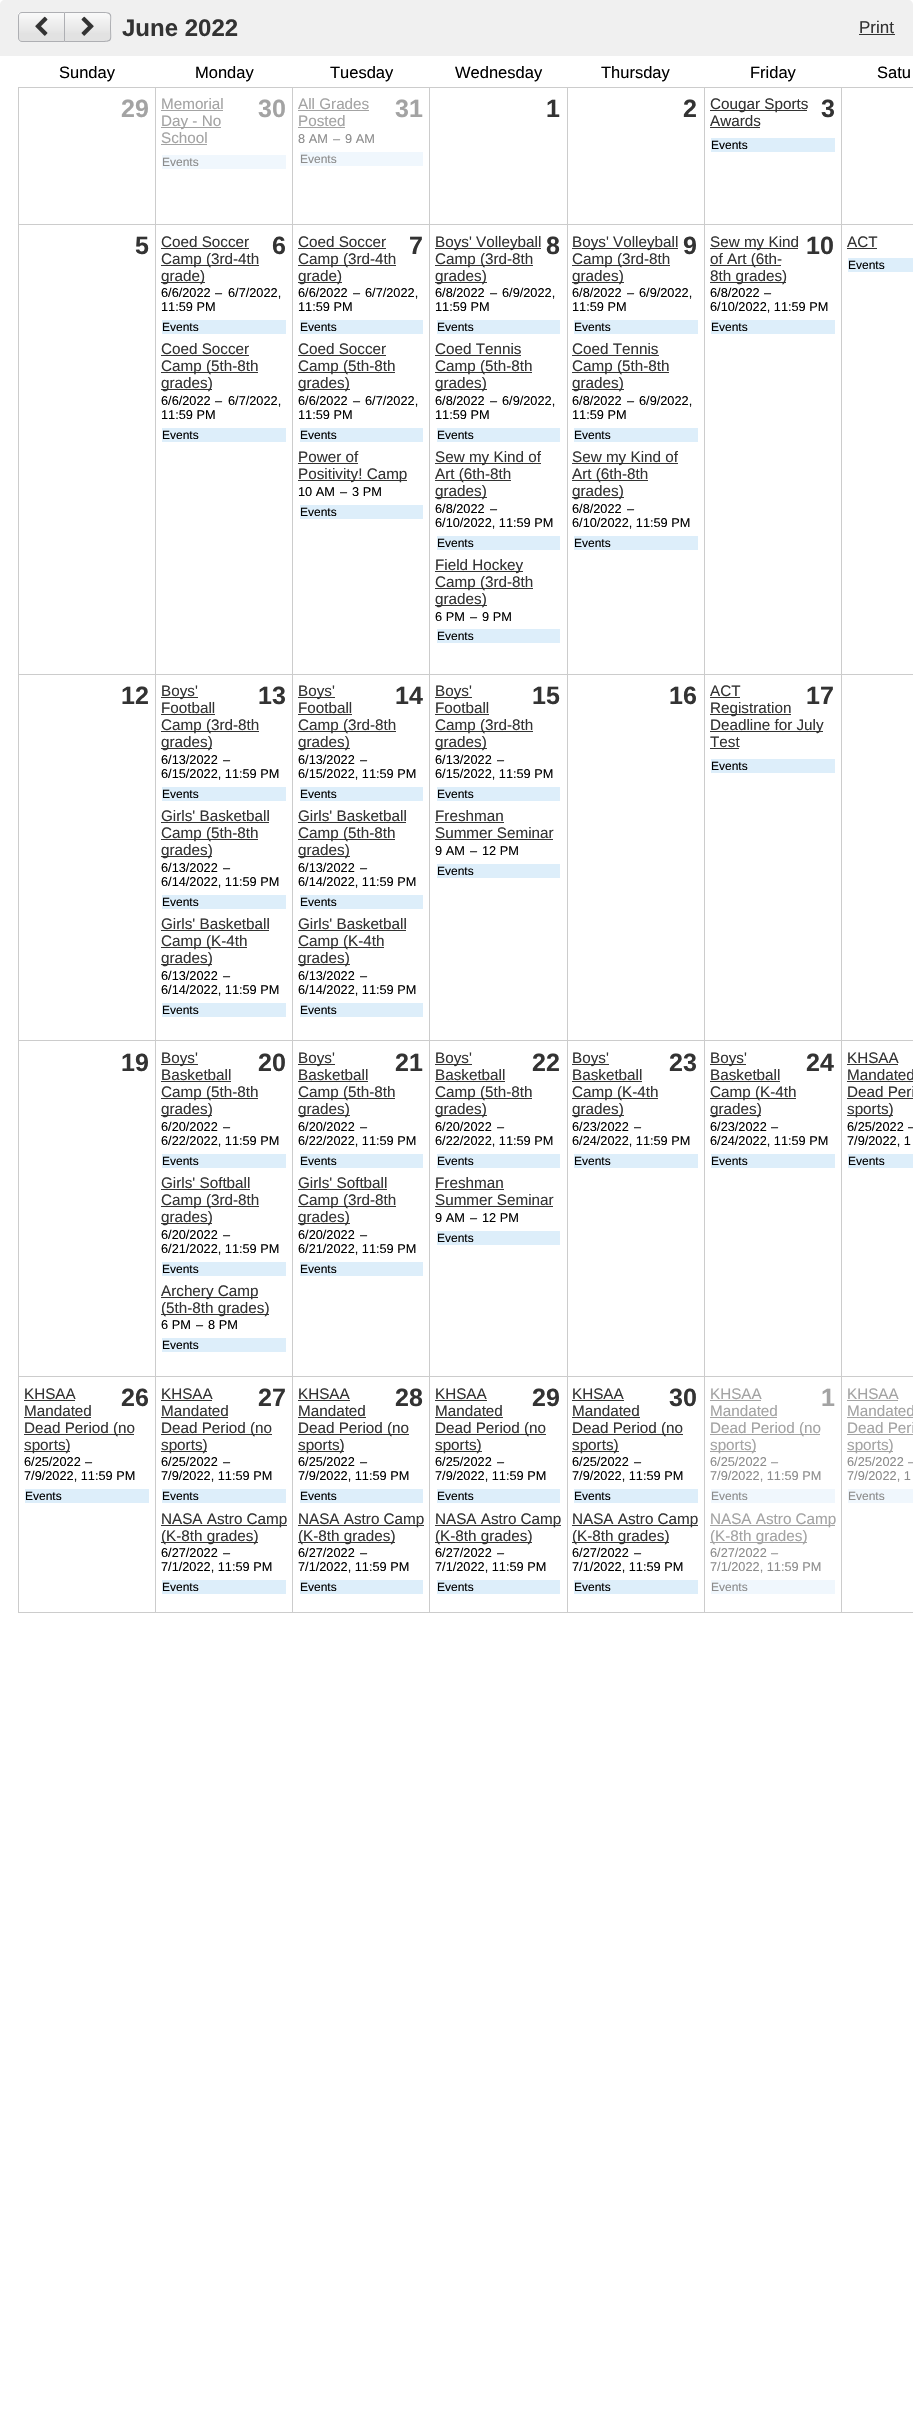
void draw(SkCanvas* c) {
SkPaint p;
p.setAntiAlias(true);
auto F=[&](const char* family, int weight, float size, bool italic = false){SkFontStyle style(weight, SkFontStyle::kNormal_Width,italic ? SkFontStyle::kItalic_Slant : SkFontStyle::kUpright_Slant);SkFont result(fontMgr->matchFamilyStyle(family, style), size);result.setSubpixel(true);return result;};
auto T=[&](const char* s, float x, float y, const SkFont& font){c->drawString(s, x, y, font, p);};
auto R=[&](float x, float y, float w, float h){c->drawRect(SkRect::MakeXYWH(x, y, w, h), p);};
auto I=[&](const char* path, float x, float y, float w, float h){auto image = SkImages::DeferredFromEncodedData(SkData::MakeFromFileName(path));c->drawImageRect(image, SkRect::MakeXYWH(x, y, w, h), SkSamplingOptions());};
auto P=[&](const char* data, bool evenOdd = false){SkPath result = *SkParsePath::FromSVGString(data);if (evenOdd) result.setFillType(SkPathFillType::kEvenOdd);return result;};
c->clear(0xffffffff);
p.setColor(0xfff0f0f0);
c->drawPath(P("M5 0h903c3 0 5 2 5 5v51h-913v-51c0-3 2-5 5-5z"),p);
p.setColor(0xffe2e2e2);
c->drawPath(P("M22 12h43v30h-43c-2 0-4-2-4-4v-22c0-2 2-4 4-4z"),p);
{
const SkColor colors[] = {0xccffffff,0x00ffffff};
const float stops[] = {0,1};
const SkPoint ends[] = {{19,13}, {19,35}};
p.setShader(SkGradientShader::MakeLinear(ends, colors, stops, 2, SkTileMode::kClamp));
p.setAlpha(255);
}
R(18,13,46,20);
p.setStroke(true);
p.setStrokeWidth(1);
p.setShader(nullptr);
p.setColor(0xffaeafb3);
c->drawPath(P("M22 12.5h42.5v29h-42.5c-2 0-3.5-1.5-3.5-3.5v-22c0-2 1.5-3.5 3.5-3.5z"),p);
I("1.png",35,16,13,20);
p.setStroke(false);
p.setColor(0xffe2e2e2);
c->drawPath(P("M65 12h42c2 0 4 2 4 4v22c0 2-2 4-4 4h-42z"),p);
{
const SkColor colors[] = {0xccffffff,0x00ffffff};
const float stops[] = {0,1};
const SkPoint ends[] = {{65,13}, {65,35}};
p.setShader(SkGradientShader::MakeLinear(ends, colors, stops, 2, SkTileMode::kClamp));
p.setAlpha(255);
}
R(65,13,46,20);
c->save();
c->clipPath(P("M65 12h42c2 0 4 2 4 4v22c0 2-2 4-4 4h-42z"),true);
{
const SkColor colors[] = {0xccffffff,0x00ffffff};
const float stops[] = {0,1};
const SkPoint ends[] = {{65,41}, {65,63}};
p.setShader(SkGradientShader::MakeLinear(ends, colors, stops, 2, SkTileMode::kClamp));
p.setAlpha(255);
}
R(102,41,9,1);
c->restore();
p.setShader(nullptr);
p.setColor(0xffaeafb3);
c->drawPath(P("M65 12h35c14 0 11 1 11 15c0 14 3 15-11 15h-35zm0 1h35c13 0 10 1 10 14c0 13 3 14-10 14h-35z",true),p);
I("2.png",81,16,13,20);
auto f1 = F("Liberation Sans",700,24);
p.setColor(0xff333333);
T("June 2022",122,36,f1);
auto f2 = F("Liberation Sans",400,17);
T("Print",859,33,f2);
R(859,34,36,1);
auto f3 = F("Liberation Sans",400,16.5);
p.setColor(0xff000000);
T("Sunday",59,78,f3);
T("Monday",195,78,f3);
T("Tuesday",330,78,f3);
T("Wednesday",455,78,f3);
T("Thursday",601,78,f3);
T("Friday",750,78,f3);
T("Satu",877,78,f3);
p.setColor(0xffcccccc);
R(18,87,895,1);
R(841,1612,72,1);
R(841,1376,1,237);
R(841,1376,72,1);
R(841,1040,1,337);
R(841,1040,72,1);
R(841,674,1,367);
R(841,674,72,1);
R(841,224,1,451);
R(841,224,72,1);
R(841,87,1,138);
R(704,1612,138,1);
R(704,1376,1,237);
R(704,1376,138,1);
R(704,1040,1,337);
R(704,1040,138,1);
R(704,674,1,367);
R(704,674,138,1);
R(704,224,1,451);
R(704,224,138,1);
R(704,87,1,138);
R(567,1612,138,1);
R(567,1376,1,237);
R(567,1376,138,1);
R(567,1040,1,337);
R(567,1040,138,1);
R(567,674,1,367);
R(567,674,138,1);
R(567,224,1,451);
R(567,224,138,1);
R(567,87,1,138);
R(429,1612,139,1);
R(429,1376,1,237);
R(429,1376,139,1);
R(429,1040,1,337);
R(429,1040,139,1);
R(429,674,1,367);
R(429,674,139,1);
R(429,224,1,451);
R(429,224,139,1);
R(429,87,1,138);
R(292,1612,138,1);
R(292,1376,1,237);
R(292,1376,138,1);
R(292,1040,1,337);
R(292,1040,138,1);
R(292,674,1,367);
R(292,674,138,1);
R(292,224,1,451);
R(292,224,138,1);
R(292,87,1,138);
R(155,1612,138,1);
R(155,1376,1,237);
R(155,1376,138,1);
R(155,1040,1,337);
R(155,1040,138,1);
R(155,674,1,367);
R(155,674,138,1);
R(155,224,1,451);
R(155,224,138,1);
R(155,87,1,138);
R(18,1612,138,1);
R(18,1376,1,237);
R(18,1376,138,1);
R(18,1040,1,337);
R(18,1040,138,1);
R(18,674,1,367);
R(18,674,138,1);
R(18,224,1,451);
R(18,224,138,1);
R(18,87,1,138);
auto f4 = F("Liberation Sans",700,25);
p.setColor(0xffa3a3a3);
T("29",121,117,f4);
auto f5 = F("Liberation Sans",400,15.25);
T("Memorial",161,109,f5);
R(161,110,62,1);
R(161,127,60,1);
T("Day - No",161,126,f5);
T("School",161,143,f5);
R(161,144,46,1);
p.setColor(0xfff0f7fd);
R(162,155,124,14);
auto f6 = F("Liberation Sans",400,12);
p.setColor(0xff8c8c8c);
T("Events",162,166,f6);
p.setColor(0xffa3a3a3);
T("30",258,117,f4);
T("All Grades",298,109,f5);
R(298,110,71,1);
T("Posted",298,126,f5);
R(298,127,47,1);
auto f7 = F("Liberation Sans",400,12.75);
p.setColor(0xff8c8c8c);
T("8 AM",298,143,f7);
T("–",333,143,f7);
T("9 AM",345,143,f7);
p.setColor(0xfff0f7fd);
R(300,152,123,14);
p.setColor(0xff8c8c8c);
T("Events",300,163,f6);
p.setColor(0xffa3a3a3);
T("31",395,117,f4);
p.setColor(0xff333333);
T("1",546,117,f4);
T("2",683,117,f4);
R(710,110,97,1);
T("Cougar Sports",710,109,f5);
T("Awards",710,126,f5);
R(710,127,50,1);
p.setColor(0xffddeefa);
R(711,138,124,14);
p.setColor(0xff000000);
T("Events",711,149,f6);
p.setColor(0xff333333);
T("3",821,117,f4);
T("5",135,254,f4);
T("Coed Soccer",161,247,f5);
R(161,248,88,1);
R(161,265,98,1);
T("Camp (3rd-4th",161,264,f5);
R(161,282,44,1);
T("grade)",161,281,f5);
p.setColor(0xff000000);
T("6/6/2022",161,297,f7);
T("–",215,297,f7);
T("6/7/2022,",228,297,f7);
T("11:59 PM",161,311,f7);
p.setColor(0xffddeefa);
R(162,320,124,14);
p.setColor(0xff000000);
T("Events",162,331,f6);
p.setColor(0xff333333);
T("Coed Soccer",161,354,f5);
R(161,355,88,1);
R(161,372,97,1);
T("Camp (5th-8th",161,371,f5);
R(161,389,51,1);
T("grades)",161,388,f5);
p.setColor(0xff000000);
T("6/6/2022",161,405,f7);
T("–",215,405,f7);
T("6/7/2022,",228,405,f7);
T("11:59 PM",161,419,f7);
p.setColor(0xffddeefa);
R(162,428,124,14);
p.setColor(0xff000000);
T("Events",162,439,f6);
p.setColor(0xff333333);
T("6",272,254,f4);
T("Coed Soccer",298,247,f5);
R(298,248,88,1);
R(298,265,98,1);
T("Camp (3rd-4th",298,264,f5);
R(298,282,44,1);
T("grade)",298,281,f5);
p.setColor(0xff000000);
T("6/6/2022",298,297,f7);
T("–",353,297,f7);
T("6/7/2022,",365,297,f7);
T("11:59 PM",298,311,f7);
p.setColor(0xffddeefa);
R(300,320,123,14);
p.setColor(0xff000000);
T("Events",300,331,f6);
p.setColor(0xff333333);
T("Coed Soccer",298,354,f5);
R(298,355,88,1);
R(298,372,97,1);
T("Camp (5th-8th",298,371,f5);
R(298,389,52,1);
T("grades)",298,388,f5);
p.setColor(0xff000000);
T("6/6/2022",298,405,f7);
T("–",353,405,f7);
T("6/7/2022,",365,405,f7);
T("11:59 PM",298,419,f7);
p.setColor(0xffddeefa);
R(300,428,123,14);
p.setColor(0xff000000);
T("Events",300,439,f6);
p.setColor(0xff333333);
T("Power of",298,462,f5);
R(298,463,60,1);
R(298,480,109,1);
T("Positivity! Camp",298,479,f5);
p.setColor(0xff000000);
T("10 AM",298,496,f7);
T("–",340,496,f7);
T("3 PM",352,496,f7);
p.setColor(0xffddeefa);
R(300,505,123,14);
p.setColor(0xff000000);
T("Events",300,516,f6);
p.setColor(0xff333333);
T("7",409,254,f4);
R(435,248,106,1);
T("Boys' Volleyball",435,247,f5);
R(435,265,98,1);
T("Camp (3rd-8th",435,264,f5);
R(435,282,52,1);
T("grades)",435,281,f5);
p.setColor(0xff000000);
T("6/8/2022",435,297,f7);
T("–",490,297,f7);
T("6/9/2022,",502,297,f7);
T("11:59 PM",435,311,f7);
p.setColor(0xffddeefa);
R(437,320,123,14);
p.setColor(0xff000000);
T("Events",437,331,f6);
p.setColor(0xff333333);
T("Coed Tennis",435,354,f5);
R(435,355,86,1);
R(435,372,97,1);
T("Camp (5th-8th",435,371,f5);
R(435,389,52,1);
T("grades)",435,388,f5);
p.setColor(0xff000000);
T("6/8/2022",435,405,f7);
T("–",490,405,f7);
T("6/9/2022,",502,405,f7);
T("11:59 PM",435,419,f7);
p.setColor(0xffddeefa);
R(437,428,123,14);
p.setColor(0xff000000);
T("Events",437,439,f6);
p.setColor(0xff333333);
R(435,463,106,1);
T("Sew my Kind of",435,462,f5);
R(435,480,76,1);
T("Art (6th-8th",435,479,f5);
R(435,497,52,1);
T("grades)",435,496,f5);
p.setColor(0xff000000);
T("6/8/2022",435,513,f7);
T("–",490,513,f7);
T("6/10/2022, 11:59 PM",435,527,f7);
p.setColor(0xffddeefa);
R(437,536,123,14);
p.setColor(0xff000000);
T("Events",437,547,f6);
p.setColor(0xff333333);
R(435,571,88,1);
T("Field Hockey",435,570,f5);
R(435,588,98,1);
T("Camp (3rd-8th",435,587,f5);
R(435,605,52,1);
T("grades)",435,604,f5);
p.setColor(0xff000000);
T("6 PM",435,621,f7);
T("–",470,621,f7);
T("9 PM",482,621,f7);
p.setColor(0xffddeefa);
R(437,629,123,14);
p.setColor(0xff000000);
T("Events",437,640,f6);
p.setColor(0xff333333);
T("8",546,254,f4);
R(572,248,106,1);
T("Boys' Volleyball",572,247,f5);
R(572,265,98,1);
T("Camp (3rd-8th",572,264,f5);
R(572,282,52,1);
T("grades)",572,281,f5);
p.setColor(0xff000000);
T("6/8/2022",572,297,f7);
T("–",627,297,f7);
T("6/9/2022,",639,297,f7);
T("11:59 PM",572,311,f7);
p.setColor(0xffddeefa);
R(574,320,124,14);
p.setColor(0xff000000);
T("Events",574,331,f6);
p.setColor(0xff333333);
T("Coed Tennis",572,354,f5);
R(572,355,87,1);
R(572,372,97,1);
T("Camp (5th-8th",572,371,f5);
R(572,389,52,1);
T("grades)",572,388,f5);
p.setColor(0xff000000);
T("6/8/2022",572,405,f7);
T("–",627,405,f7);
T("6/9/2022,",639,405,f7);
T("11:59 PM",572,419,f7);
p.setColor(0xffddeefa);
R(574,428,124,14);
p.setColor(0xff000000);
T("Events",574,439,f6);
p.setColor(0xff333333);
R(572,463,106,1);
T("Sew my Kind of",572,462,f5);
R(572,480,76,1);
T("Art (6th-8th",572,479,f5);
R(572,497,52,1);
T("grades)",572,496,f5);
p.setColor(0xff000000);
T("6/8/2022",572,513,f7);
T("–",627,513,f7);
T("6/10/2022, 11:59 PM",572,527,f7);
p.setColor(0xffddeefa);
R(574,536,124,14);
p.setColor(0xff000000);
T("Events",574,547,f6);
p.setColor(0xff333333);
T("9",683,254,f4);
R(710,248,88,1);
T("Sew my Kind",710,247,f5);
R(710,265,71,1);
T("of Art (6th-",710,264,f5);
R(710,282,76,1);
T("8th grades)",710,281,f5);
p.setColor(0xff000000);
T("6/8/2022",710,297,f7);
T("–",764,297,f7);
T("6/10/2022, 11:59 PM",710,311,f7);
p.setColor(0xffddeefa);
R(711,320,124,14);
p.setColor(0xff000000);
T("Events",711,331,f6);
p.setColor(0xff333333);
T("10",806,254,f4);
T("ACT",847,247,f5);
R(847,248,30,1);
p.setColor(0xffddeefa);
R(848,258,65,14);
p.setColor(0xff000000);
T("Events",848,269,f6);
p.setColor(0xff333333);
T("12",121,704,f4);
R(161,697,37,1);
T("Boys'",161,696,f5);
T("Football",161,713,f5);
R(161,714,54,1);
R(161,731,98,1);
T("Camp (3rd-8th",161,730,f5);
R(161,748,51,1);
T("grades)",161,747,f5);
p.setColor(0xff000000);
T("6/13/2022",161,764,f7);
T("–",223,764,f7);
T("6/15/2022, 11:59 PM",161,778,f7);
p.setColor(0xffddeefa);
R(162,787,124,14);
p.setColor(0xff000000);
T("Events",162,798,f6);
p.setColor(0xff333333);
T("Girls' Basketball",161,821,f5);
R(161,822,108,1);
R(161,839,97,1);
T("Camp (5th-8th",161,838,f5);
R(161,856,51,1);
T("grades)",161,855,f5);
p.setColor(0xff000000);
T("6/13/2022",161,872,f7);
T("–",223,872,f7);
T("6/14/2022, 11:59 PM",161,886,f7);
p.setColor(0xffddeefa);
R(162,895,124,14);
p.setColor(0xff000000);
T("Events",162,906,f6);
p.setColor(0xff333333);
T("Girls' Basketball",161,929,f5);
R(161,930,108,1);
R(161,947,86,1);
T("Camp (K-4th",161,946,f5);
R(161,964,51,1);
T("grades)",161,963,f5);
p.setColor(0xff000000);
T("6/13/2022",161,980,f7);
T("–",223,980,f7);
T("6/14/2022, 11:59 PM",161,994,f7);
p.setColor(0xffddeefa);
R(162,1003,124,14);
p.setColor(0xff000000);
T("Events",162,1014,f6);
p.setColor(0xff333333);
T("13",258,704,f4);
R(298,697,37,1);
T("Boys'",298,696,f5);
T("Football",298,713,f5);
R(298,714,54,1);
R(298,731,98,1);
T("Camp (3rd-8th",298,730,f5);
R(298,748,52,1);
T("grades)",298,747,f5);
p.setColor(0xff000000);
T("6/13/2022",298,764,f7);
T("–",360,764,f7);
T("6/15/2022, 11:59 PM",298,778,f7);
p.setColor(0xffddeefa);
R(300,787,123,14);
p.setColor(0xff000000);
T("Events",300,798,f6);
p.setColor(0xff333333);
T("Girls' Basketball",298,821,f5);
R(298,822,108,1);
R(298,839,97,1);
T("Camp (5th-8th",298,838,f5);
R(298,856,52,1);
T("grades)",298,855,f5);
p.setColor(0xff000000);
T("6/13/2022",298,872,f7);
T("–",360,872,f7);
T("6/14/2022, 11:59 PM",298,886,f7);
p.setColor(0xffddeefa);
R(300,895,123,14);
p.setColor(0xff000000);
T("Events",300,906,f6);
p.setColor(0xff333333);
T("Girls' Basketball",298,929,f5);
R(298,930,108,1);
R(298,947,86,1);
T("Camp (K-4th",298,946,f5);
R(298,964,52,1);
T("grades)",298,963,f5);
p.setColor(0xff000000);
T("6/13/2022",298,980,f7);
T("–",360,980,f7);
T("6/14/2022, 11:59 PM",298,994,f7);
p.setColor(0xffddeefa);
R(300,1003,123,14);
p.setColor(0xff000000);
T("Events",300,1014,f6);
p.setColor(0xff333333);
T("14",395,704,f4);
R(435,697,37,1);
T("Boys'",435,696,f5);
T("Football",435,713,f5);
R(435,714,54,1);
R(435,731,98,1);
T("Camp (3rd-8th",435,730,f5);
R(435,748,52,1);
T("grades)",435,747,f5);
p.setColor(0xff000000);
T("6/13/2022",435,764,f7);
T("–",497,764,f7);
T("6/15/2022, 11:59 PM",435,778,f7);
p.setColor(0xffddeefa);
R(437,787,123,14);
p.setColor(0xff000000);
T("Events",437,798,f6);
p.setColor(0xff333333);
T("Freshman",435,821,f5);
R(435,822,69,1);
T("Summer Seminar",435,838,f5);
R(435,839,118,1);
p.setColor(0xff000000);
T("9 AM",435,855,f7);
T("–",470,855,f7);
T("12 PM",482,855,f7);
p.setColor(0xffddeefa);
R(437,864,123,14);
p.setColor(0xff000000);
T("Events",437,875,f6);
p.setColor(0xff333333);
T("15",532,704,f4);
T("16",669,704,f4);
T("ACT",710,696,f5);
R(710,697,30,1);
R(710,714,81,1);
T("Registration",710,713,f5);
R(710,731,113,1);
T("Deadline for July",710,730,f5);
T("Test",710,747,f5);
R(710,748,29,1);
p.setColor(0xffddeefa);
R(711,759,124,14);
p.setColor(0xff000000);
T("Events",711,770,f6);
p.setColor(0xff333333);
T("17",806,704,f4);
T("19",121,1071,f4);
R(161,1064,37,1);
T("Boys'",161,1063,f5);
T("Basketball",161,1080,f5);
R(161,1081,70,1);
R(161,1098,97,1);
T("Camp (5th-8th",161,1097,f5);
R(161,1115,51,1);
T("grades)",161,1114,f5);
p.setColor(0xff000000);
T("6/20/2022",161,1131,f7);
T("–",223,1131,f7);
T("6/22/2022, 11:59 PM",161,1145,f7);
p.setColor(0xffddeefa);
R(162,1154,124,14);
p.setColor(0xff000000);
T("Events",162,1165,f6);
p.setColor(0xff333333);
T("Girls' Softball",161,1188,f5);
R(161,1189,89,1);
R(161,1206,98,1);
T("Camp (3rd-8th",161,1205,f5);
R(161,1223,51,1);
T("grades)",161,1222,f5);
p.setColor(0xff000000);
T("6/20/2022",161,1239,f7);
T("–",223,1239,f7);
T("6/21/2022, 11:59 PM",161,1253,f7);
p.setColor(0xffddeefa);
R(162,1262,124,14);
p.setColor(0xff000000);
T("Events",162,1273,f6);
p.setColor(0xff333333);
R(161,1297,97,1);
T("Archery Camp",161,1296,f5);
R(161,1314,108,1);
T("(5th-8th grades)",161,1313,f5);
p.setColor(0xff000000);
T("6 PM",161,1329,f7);
T("–",196,1329,f7);
T("8 PM",208,1329,f7);
p.setColor(0xffddeefa);
R(162,1338,124,14);
p.setColor(0xff000000);
T("Events",162,1349,f6);
p.setColor(0xff333333);
T("20",258,1071,f4);
R(298,1064,37,1);
T("Boys'",298,1063,f5);
T("Basketball",298,1080,f5);
R(298,1081,70,1);
R(298,1098,97,1);
T("Camp (5th-8th",298,1097,f5);
R(298,1115,52,1);
T("grades)",298,1114,f5);
p.setColor(0xff000000);
T("6/20/2022",298,1131,f7);
T("–",360,1131,f7);
T("6/22/2022, 11:59 PM",298,1145,f7);
p.setColor(0xffddeefa);
R(300,1154,123,14);
p.setColor(0xff000000);
T("Events",300,1165,f6);
p.setColor(0xff333333);
T("Girls' Softball",298,1188,f5);
R(298,1189,89,1);
R(298,1206,98,1);
T("Camp (3rd-8th",298,1205,f5);
R(298,1223,52,1);
T("grades)",298,1222,f5);
p.setColor(0xff000000);
T("6/20/2022",298,1239,f7);
T("–",360,1239,f7);
T("6/21/2022, 11:59 PM",298,1253,f7);
p.setColor(0xffddeefa);
R(300,1262,123,14);
p.setColor(0xff000000);
T("Events",300,1273,f6);
p.setColor(0xff333333);
T("21",395,1071,f4);
R(435,1064,37,1);
T("Boys'",435,1063,f5);
T("Basketball",435,1080,f5);
R(435,1081,70,1);
R(435,1098,97,1);
T("Camp (5th-8th",435,1097,f5);
R(435,1115,52,1);
T("grades)",435,1114,f5);
p.setColor(0xff000000);
T("6/20/2022",435,1131,f7);
T("–",497,1131,f7);
T("6/22/2022, 11:59 PM",435,1145,f7);
p.setColor(0xffddeefa);
R(437,1154,123,14);
p.setColor(0xff000000);
T("Events",437,1165,f6);
p.setColor(0xff333333);
T("Freshman",435,1188,f5);
R(435,1189,69,1);
T("Summer Seminar",435,1205,f5);
R(435,1206,118,1);
p.setColor(0xff000000);
T("9 AM",435,1222,f7);
T("–",470,1222,f7);
T("12 PM",482,1222,f7);
p.setColor(0xffddeefa);
R(437,1231,123,14);
p.setColor(0xff000000);
T("Events",437,1242,f6);
p.setColor(0xff333333);
T("22",532,1071,f4);
R(572,1064,37,1);
T("Boys'",572,1063,f5);
T("Basketball",572,1080,f5);
R(572,1081,70,1);
R(572,1098,86,1);
T("Camp (K-4th",572,1097,f5);
R(572,1115,52,1);
T("grades)",572,1114,f5);
p.setColor(0xff000000);
T("6/23/2022",572,1131,f7);
T("–",634,1131,f7);
T("6/24/2022, 11:59 PM",572,1145,f7);
p.setColor(0xffddeefa);
R(574,1154,124,14);
p.setColor(0xff000000);
T("Events",574,1165,f6);
p.setColor(0xff333333);
T("23",669,1071,f4);
R(710,1064,36,1);
T("Boys'",710,1063,f5);
T("Basketball",710,1080,f5);
R(710,1081,70,1);
R(710,1098,86,1);
T("Camp (K-4th",710,1097,f5);
R(710,1115,51,1);
T("grades)",710,1114,f5);
p.setColor(0xff000000);
T("6/23/2022",710,1131,f7);
T("–",771,1131,f7);
T("6/24/2022, 11:59 PM",710,1145,f7);
p.setColor(0xffddeefa);
R(711,1154,124,14);
p.setColor(0xff000000);
T("Events",711,1165,f6);
p.setColor(0xff333333);
T("24",806,1071,f4);
T("KHSAA",847,1063,f5);
R(847,1064,51,1);
T("Mandated",847,1080,f5);
R(847,1081,66,1);
T("Dead Peri",847,1097,f5);
R(847,1098,66,1);
R(847,1115,46,1);
T("sports)",847,1114,f5);
p.setColor(0xff000000);
T("6/25/2022",847,1131,f7);
T("–",908,1131,f7);
T("7/9/2022, 1",847,1145,f7);
p.setColor(0xffddeefa);
R(848,1154,65,14);
p.setColor(0xff000000);
T("Events",848,1165,f6);
p.setColor(0xff333333);
T("KHSAA",24,1399,f5);
R(24,1400,51,1);
T("Mandated",24,1416,f5);
R(24,1417,67,1);
R(24,1434,110,1);
T("Dead Period (no",24,1433,f5);
R(24,1451,46,1);
T("sports)",24,1450,f5);
p.setColor(0xff000000);
T("6/25/2022",24,1466,f7);
T("–",85,1466,f7);
T("7/9/2022, 11:59 PM",24,1480,f7);
p.setColor(0xffddeefa);
R(25,1489,124,14);
p.setColor(0xff000000);
T("Events",25,1500,f6);
p.setColor(0xff333333);
T("26",121,1406,f4);
T("KHSAA",161,1399,f5);
R(161,1400,51,1);
T("Mandated",161,1416,f5);
R(161,1417,67,1);
R(161,1434,111,1);
T("Dead Period (no",161,1433,f5);
R(161,1451,46,1);
T("sports)",161,1450,f5);
p.setColor(0xff000000);
T("6/25/2022",161,1466,f7);
T("–",223,1466,f7);
T("7/9/2022, 11:59 PM",161,1480,f7);
p.setColor(0xffddeefa);
R(162,1489,124,14);
p.setColor(0xff000000);
T("Events",162,1500,f6);
p.setColor(0xff333333);
R(161,1525,126,1);
T("NASA Astro Camp",161,1524,f5);
R(161,1542,97,1);
T("(K-8th grades)",161,1541,f5);
p.setColor(0xff000000);
T("6/27/2022",161,1557,f7);
T("–",223,1557,f7);
T("7/1/2022, 11:59 PM",161,1571,f7);
p.setColor(0xffddeefa);
R(162,1580,124,14);
p.setColor(0xff000000);
T("Events",162,1591,f6);
p.setColor(0xff333333);
T("27",258,1406,f4);
T("KHSAA",298,1399,f5);
R(298,1400,52,1);
T("Mandated",298,1416,f5);
R(298,1417,68,1);
R(298,1434,111,1);
T("Dead Period (no",298,1433,f5);
R(298,1451,46,1);
T("sports)",298,1450,f5);
p.setColor(0xff000000);
T("6/25/2022",298,1466,f7);
T("–",360,1466,f7);
T("7/9/2022, 11:59 PM",298,1480,f7);
p.setColor(0xffddeefa);
R(300,1489,123,14);
p.setColor(0xff000000);
T("Events",300,1500,f6);
p.setColor(0xff333333);
R(298,1525,126,1);
T("NASA Astro Camp",298,1524,f5);
R(298,1542,97,1);
T("(K-8th grades)",298,1541,f5);
p.setColor(0xff000000);
T("6/27/2022",298,1557,f7);
T("–",360,1557,f7);
T("7/1/2022, 11:59 PM",298,1571,f7);
p.setColor(0xffddeefa);
R(300,1580,123,14);
p.setColor(0xff000000);
T("Events",300,1591,f6);
p.setColor(0xff333333);
T("28",395,1406,f4);
T("KHSAA",435,1399,f5);
R(435,1400,52,1);
T("Mandated",435,1416,f5);
R(435,1417,68,1);
R(435,1434,111,1);
T("Dead Period (no",435,1433,f5);
R(435,1451,47,1);
T("sports)",435,1450,f5);
p.setColor(0xff000000);
T("6/25/2022",435,1466,f7);
T("–",497,1466,f7);
T("7/9/2022, 11:59 PM",435,1480,f7);
p.setColor(0xffddeefa);
R(437,1489,123,14);
p.setColor(0xff000000);
T("Events",437,1500,f6);
p.setColor(0xff333333);
R(435,1525,126,1);
T("NASA Astro Camp",435,1524,f5);
R(435,1542,97,1);
T("(K-8th grades)",435,1541,f5);
p.setColor(0xff000000);
T("6/27/2022",435,1557,f7);
T("–",497,1557,f7);
T("7/1/2022, 11:59 PM",435,1571,f7);
p.setColor(0xffddeefa);
R(437,1580,123,14);
p.setColor(0xff000000);
T("Events",437,1591,f6);
p.setColor(0xff333333);
T("29",532,1406,f4);
T("KHSAA",572,1399,f5);
R(572,1400,52,1);
T("Mandated",572,1416,f5);
R(572,1417,68,1);
R(572,1434,111,1);
T("Dead Period (no",572,1433,f5);
R(572,1451,47,1);
T("sports)",572,1450,f5);
p.setColor(0xff000000);
T("6/25/2022",572,1466,f7);
T("–",634,1466,f7);
T("7/9/2022, 11:59 PM",572,1480,f7);
p.setColor(0xffddeefa);
R(574,1489,124,14);
p.setColor(0xff000000);
T("Events",574,1500,f6);
p.setColor(0xff333333);
R(572,1525,126,1);
T("NASA Astro Camp",572,1524,f5);
R(572,1542,97,1);
T("(K-8th grades)",572,1541,f5);
p.setColor(0xff000000);
T("6/27/2022",572,1557,f7);
T("–",634,1557,f7);
T("7/1/2022, 11:59 PM",572,1571,f7);
p.setColor(0xffddeefa);
R(574,1580,124,14);
p.setColor(0xff000000);
T("Events",574,1591,f6);
p.setColor(0xff333333);
T("30",669,1406,f4);
p.setColor(0xffa3a3a3);
T("KHSAA",710,1399,f5);
R(710,1400,51,1);
T("Mandated",710,1416,f5);
R(710,1417,67,1);
R(710,1434,110,1);
T("Dead Period (no",710,1433,f5);
R(710,1451,46,1);
T("sports)",710,1450,f5);
p.setColor(0xff8c8c8c);
T("6/25/2022",710,1466,f7);
T("–",771,1466,f7);
T("7/9/2022, 11:59 PM",710,1480,f7);
p.setColor(0xfff0f7fd);
R(711,1489,124,14);
p.setColor(0xff8c8c8c);
T("Events",711,1500,f6);
p.setColor(0xffa3a3a3);
R(710,1525,125,1);
T("NASA Astro Camp",710,1524,f5);
R(710,1542,97,1);
T("(K-8th grades)",710,1541,f5);
p.setColor(0xff8c8c8c);
T("6/27/2022",710,1557,f7);
T("–",771,1557,f7);
T("7/1/2022, 11:59 PM",710,1571,f7);
p.setColor(0xfff0f7fd);
R(711,1580,124,14);
p.setColor(0xff8c8c8c);
T("Events",711,1591,f6);
p.setColor(0xffa3a3a3);
T("1",821,1406,f4);
T("KHSAA",847,1399,f5);
R(847,1400,51,1);
T("Mandated",847,1416,f5);
R(847,1417,66,1);
T("Dead Peri",847,1433,f5);
R(847,1434,66,1);
R(847,1451,46,1);
T("sports)",847,1450,f5);
p.setColor(0xff8c8c8c);
T("6/25/2022",847,1466,f7);
T("–",908,1466,f7);
T("7/9/2022, 1",847,1480,f7);
p.setColor(0xfff0f7fd);
R(848,1489,65,14);
p.setColor(0xff8c8c8c);
T("Events",848,1500,f6);
}
